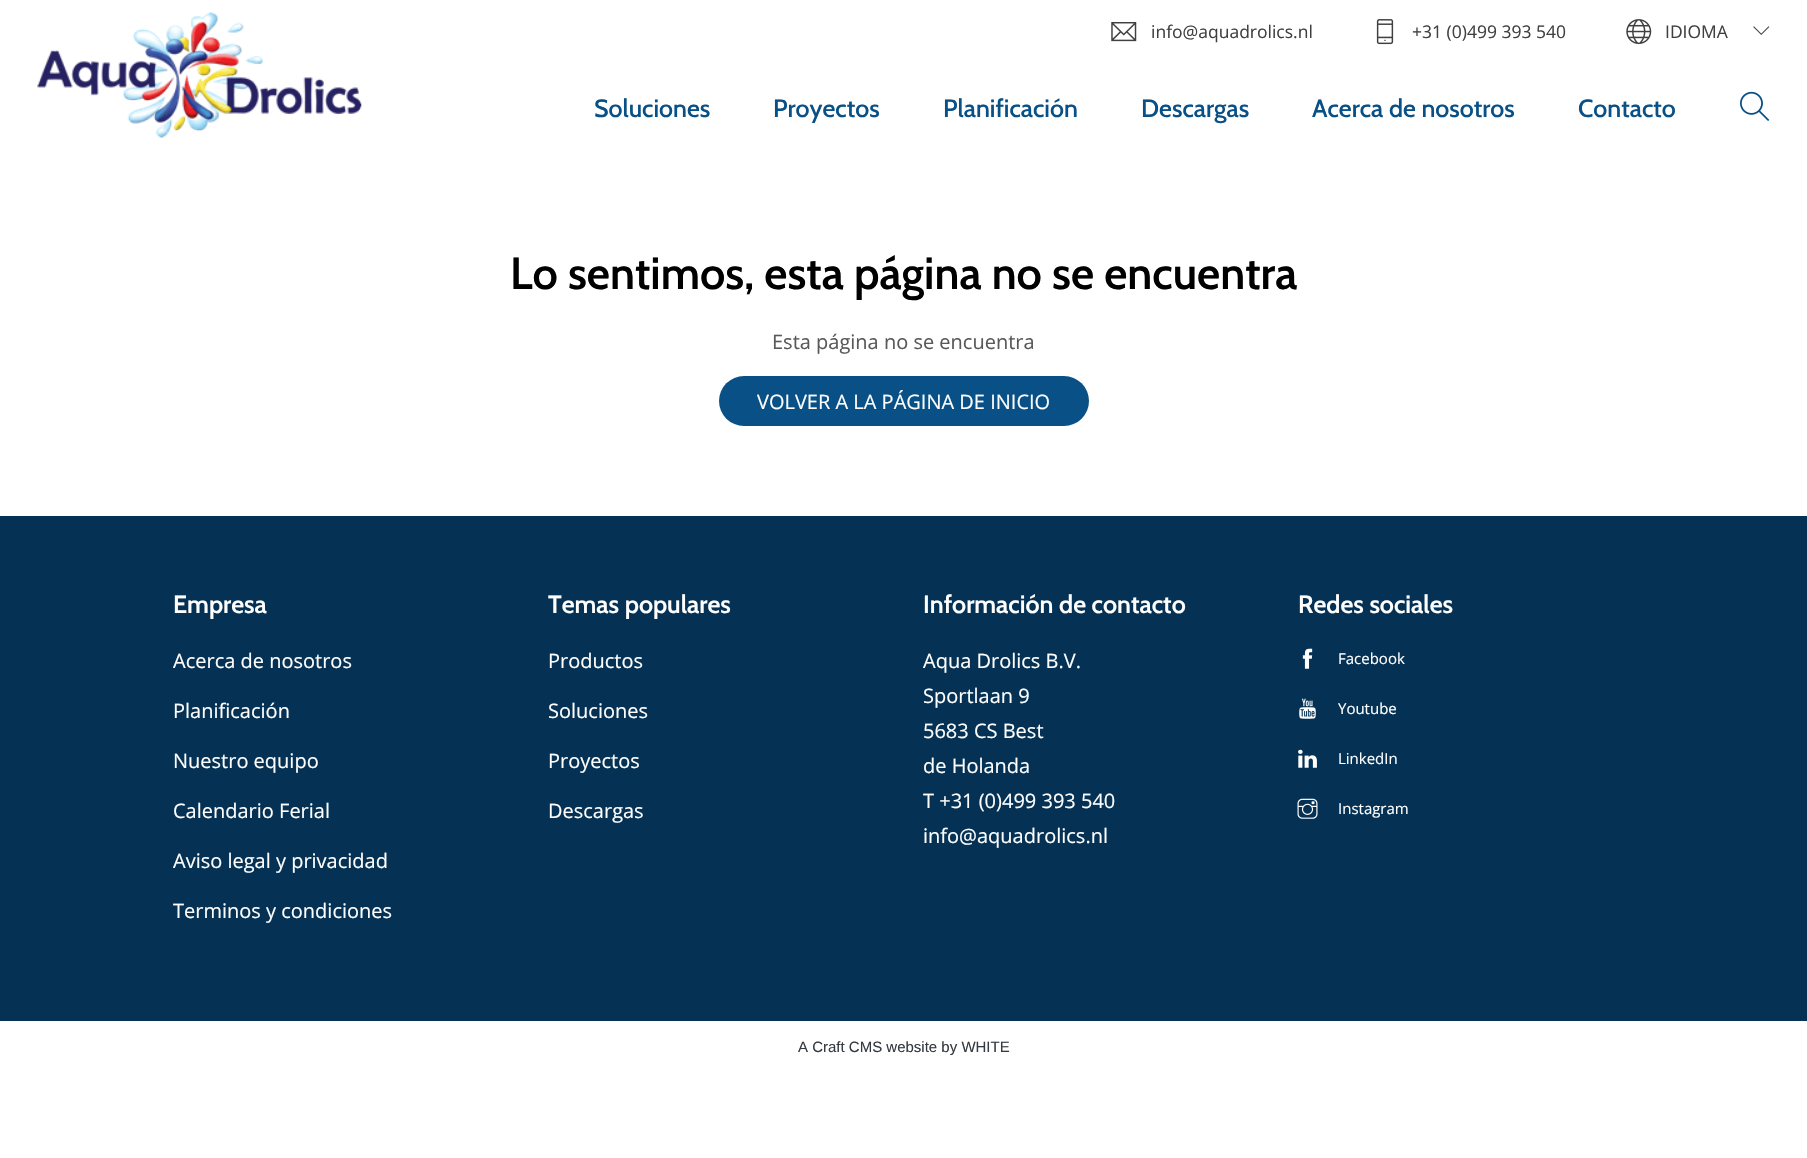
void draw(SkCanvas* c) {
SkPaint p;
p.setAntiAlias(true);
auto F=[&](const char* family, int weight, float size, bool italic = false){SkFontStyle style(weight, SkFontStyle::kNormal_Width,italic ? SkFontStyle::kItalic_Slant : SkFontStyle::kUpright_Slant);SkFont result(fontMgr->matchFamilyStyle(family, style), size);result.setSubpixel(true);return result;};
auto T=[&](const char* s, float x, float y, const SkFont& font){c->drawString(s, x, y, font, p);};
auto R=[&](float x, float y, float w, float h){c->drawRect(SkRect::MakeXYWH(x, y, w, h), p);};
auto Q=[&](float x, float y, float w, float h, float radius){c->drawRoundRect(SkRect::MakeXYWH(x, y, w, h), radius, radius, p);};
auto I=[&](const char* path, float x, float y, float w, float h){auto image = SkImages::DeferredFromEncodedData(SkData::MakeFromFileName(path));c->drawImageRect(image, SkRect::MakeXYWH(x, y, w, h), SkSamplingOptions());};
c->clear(0xffffffff);
I("1.png",37,12,325,126);
I("2.png",1111,22,26,20);
auto f1 = F("Open Sans",400,17.5);
p.setColor(0xff404040);
T("info@aquadrolics.nl",1151,38,f1);
I("3.png",1376,19,18,26);
T("+31 (0)499 393 540",1412,38,f1);
I("4.png",1626,19,26,26);
T("IDIOMA",1665,38,f1);
I("5.png",1753,26,17,9);
auto f2 = F("Cabin",500,25);
p.setColor(0xff085086);
T("Soluciones",594,117,f2);
T("Proyectos",773,117,f2);
T("Planificación",943,117,f2);
T("Descargas",1141,117,f2);
T("Acerca de nosotros",1312,117,f2);
T("Contacto",1578,117,f2);
I("6.png",1740,91,30,30);
auto f3 = F("Cabin",600,45);
p.setColor(0xff000000);
T("Lo sentimos, esta página no se encuentra",510,289,f3);
auto f4 = F("Open Sans",400,20);
p.setColor(0xff595959);
T("Esta página no se encuentra",772,349,f4);
p.setColor(0xff085086);
Q(719,376,370,50,25);
p.setColor(0xffffffff);
T("VOLVER A LA PÁGINA DE INICIO",757,409,f4);
p.setColor(0xff053254);
R(0,516,1807,505);
auto f5 = F("Cabin",600,25);
p.setColor(0xffffffff);
T("Empresa",173,613,f5);
T("Acerca de nosotros",173,668,f4);
T("Planificación",173,718,f4);
T("Nuestro equipo",173,768,f4);
T("Calendario Ferial",173,818,f4);
T("Aviso legal y privacidad",173,868,f4);
T("Terminos y condiciones",173,918,f4);
T("Temas populares",548,613,f5);
T("Productos",548,668,f4);
T("Soluciones",548,718,f4);
T("Proyectos",548,768,f4);
T("Descargas",548,818,f4);
T("Información de contacto",923,613,f5);
T("Aqua Drolics B.V.",923,668,f4);
T("Sportlaan 9",923,703,f4);
T("5683 CS Best",923,738,f4);
T("de Holanda",923,773,f4);
T("T +31 (0)499 393 540",923,808,f4);
T("info@aquadrolics.nl",923,843,f4);
T("Redes sociales",1298,613,f5);
I("7.png",1302,648,11,21);
auto f6 = F("Open Sans",400,15);
T("Facebook",1338,664,f6);
I("8.png",1299,698,17,21);
T("Youtube",1338,714,f6);
I("9.png",1298,749,19,19);
T("LinkedIn",1338,764,f6);
I("10.png",1297,798,21,21);
T("Instagram",1338,814,f6);
auto f7 = F("Liberation Sans",400,15);
p.setColor(0xff343a40);
T("A Craft CMS website by WHITE",798,1052,f7);
}
